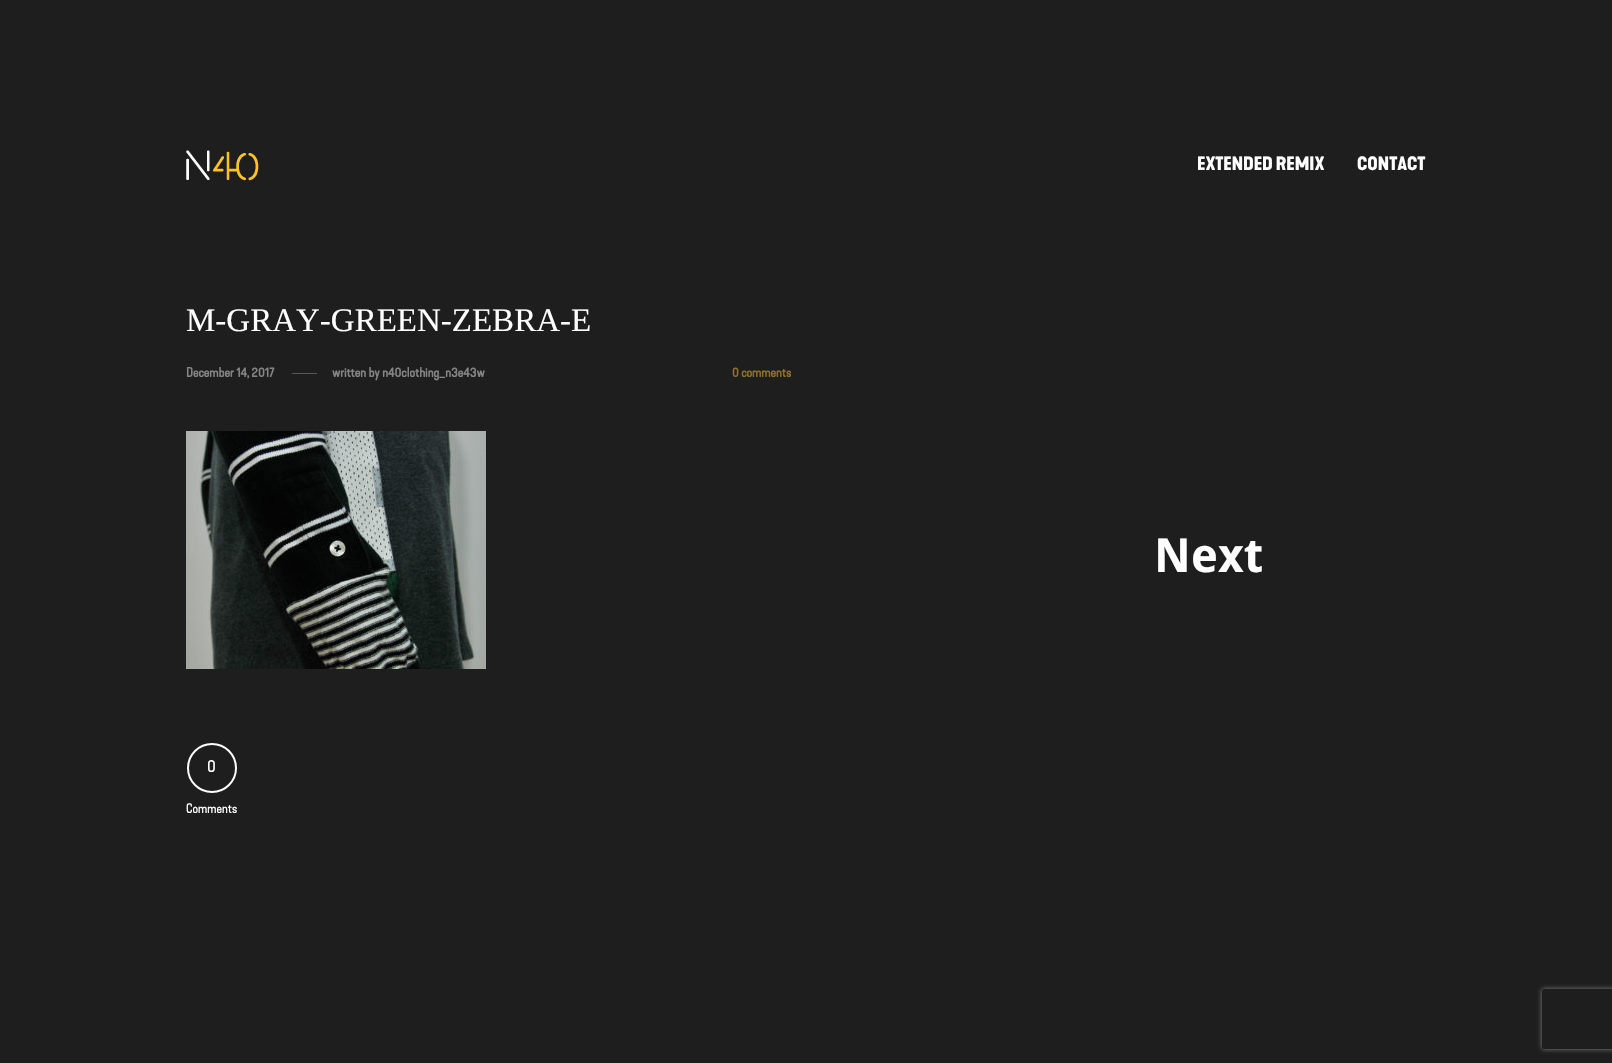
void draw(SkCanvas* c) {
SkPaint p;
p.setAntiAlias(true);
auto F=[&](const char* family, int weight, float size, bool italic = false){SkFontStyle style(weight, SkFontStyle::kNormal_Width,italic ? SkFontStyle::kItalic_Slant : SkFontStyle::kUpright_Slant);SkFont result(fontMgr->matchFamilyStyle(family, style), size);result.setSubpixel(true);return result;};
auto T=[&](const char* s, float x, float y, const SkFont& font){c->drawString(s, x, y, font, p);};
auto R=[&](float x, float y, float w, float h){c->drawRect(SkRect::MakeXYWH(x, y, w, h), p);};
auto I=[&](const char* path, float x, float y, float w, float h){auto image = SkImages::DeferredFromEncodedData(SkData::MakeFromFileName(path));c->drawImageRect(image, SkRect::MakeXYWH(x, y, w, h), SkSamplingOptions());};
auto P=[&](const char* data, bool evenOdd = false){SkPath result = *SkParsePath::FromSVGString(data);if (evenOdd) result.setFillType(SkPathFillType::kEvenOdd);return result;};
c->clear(0xff1e1e1e);
I("1.png",186,150,73,31);
auto f1 = F("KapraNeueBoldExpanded",400,18);
p.setColor(0xffffffff);
T("EXTENDED REMIX",1197,170,f1);
T("CONTACT",1357,170,f1);
auto f2 = F("Liberation Serif",400,33);
T("M-GRAY-GREEN-ZEBRA-E",186,331,f2);
auto f3 = F("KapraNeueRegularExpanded",700,13);
p.setColor(0xff848484);
T("December 14, 2017",186,377,f3);
p.setColor(0xff565656);
R(292,373,25,1);
p.setColor(0xff848484);
T("written by n40clothing_n3e43w",332,377,f3);
p.setColor(0xff8f7020);
T("0 comments",732,377,f3);
I("2.png",186,431,300,238);
auto f4 = F("Droid Sans",700,47);
p.setColor(0xffffffff);
T("Next",1154,572,f4);
p.setStroke(true);
p.setStrokeWidth(2);
c->drawCircle(212,768,24,p);
auto f5 = F("KapraNeueRegularExpanded",400,17);
p.setStroke(false);
T("0",207,772,f5);
auto f6 = F("KapraNeueRegularExpanded",400,13);
T("Comments",186,813,f6);
c->save();
c->clipPath(P("M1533 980h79v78h-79zm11 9h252c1 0 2 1 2 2v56c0 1-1 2-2 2h-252c-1 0-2-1-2-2v-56c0-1 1-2 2-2z",true),true);
p.setColor(0xff808080);
p.setMaskFilter(SkMaskFilter::MakeBlur(kNormal_SkBlurStyle, 2.5));
c->drawRoundRect(SkRect::MakeXYWH(1542,989,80,60),2,2,p);
p.setMaskFilter(nullptr);
c->restore();
}
